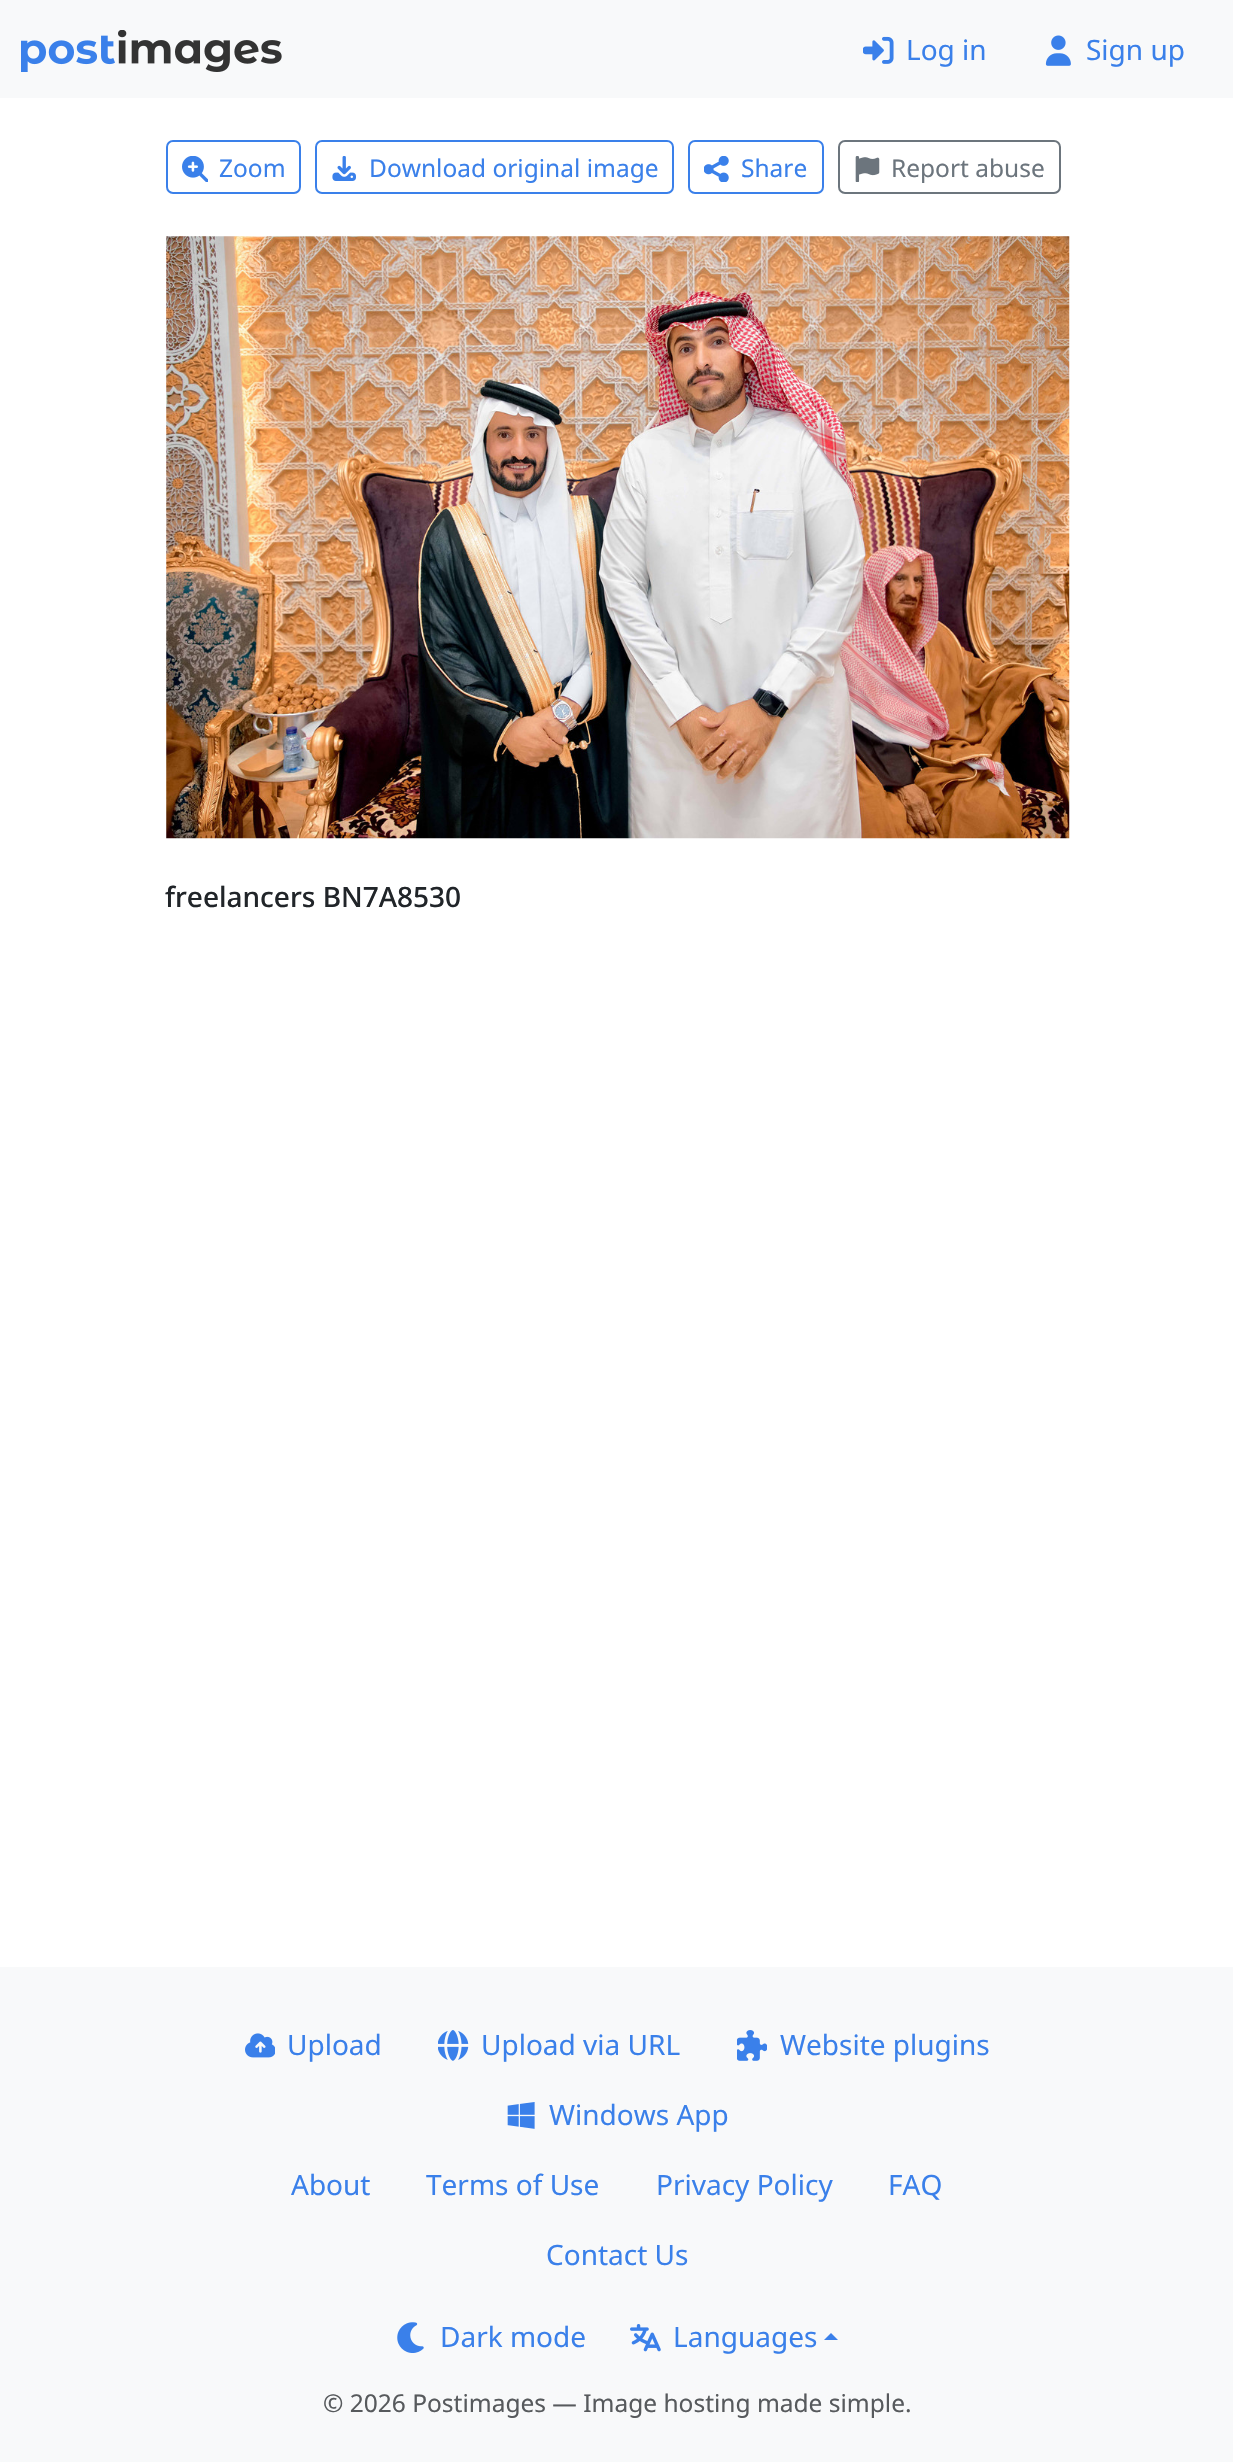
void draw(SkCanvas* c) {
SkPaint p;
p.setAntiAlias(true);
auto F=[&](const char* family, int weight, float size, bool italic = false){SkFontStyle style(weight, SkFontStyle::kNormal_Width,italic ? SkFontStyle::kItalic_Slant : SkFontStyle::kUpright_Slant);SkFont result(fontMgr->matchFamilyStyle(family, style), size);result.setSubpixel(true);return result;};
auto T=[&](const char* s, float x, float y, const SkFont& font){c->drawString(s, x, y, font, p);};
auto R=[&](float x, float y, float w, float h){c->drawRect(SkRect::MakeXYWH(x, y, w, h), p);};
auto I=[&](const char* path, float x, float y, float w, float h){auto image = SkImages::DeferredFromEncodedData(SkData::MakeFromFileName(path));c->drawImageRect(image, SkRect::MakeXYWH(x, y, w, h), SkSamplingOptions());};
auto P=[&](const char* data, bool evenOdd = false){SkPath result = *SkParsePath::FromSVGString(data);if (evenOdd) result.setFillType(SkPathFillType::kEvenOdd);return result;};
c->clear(0xffffffff);
p.setColor(0xfff8f9fa);
R(0,0,1233,98);
I("1.png",21,30,261,42);
I("2.png",863,36,31,28);
auto f1 = F("Noto Sans",400,28);
p.setColor(0xff3a80ea);
T("Log in",906,60,f1);
I("3.png",1045,35,26,31);
T("Sign up",1086,60,f1);
p.setStroke(true);
p.setStrokeWidth(2);
c->drawRoundRect(SkRect::MakeXYWH(167,141,133,52),6,6,p);
I("4.png",182,156,26,26);
auto f2 = F("Noto Sans",400,24.5);
p.setStroke(false);
T("Zoom",219,177,f2);
p.setStroke(true);
c->drawRoundRect(SkRect::MakeXYWH(316,141,357,52),6,6,p);
I("5.png",332,156,24,25);
p.setStroke(false);
T("Download original image",369,177,f2);
p.setStroke(true);
c->drawRoundRect(SkRect::MakeXYWH(689,141,134,52),6,6,p);
I("6.png",704,156,25,26);
p.setStroke(false);
T("Share",741,177,f2);
p.setStroke(true);
p.setColor(0xff6c757d);
c->drawRoundRect(SkRect::MakeXYWH(839,141,221,52),6,6,p);
I("7.png",855,156,25,26);
p.setStroke(false);
T("Report abuse",891,177,f2);
I("8.png",166,236,904,603);
auto f3 = F("Noto Sans",500,28);
p.setColor(0xff212529);
T("freelancers BN7A8530",165,907,f3);
p.setColor(0xfff8f9fa);
R(0,1967,1233,495);
I("9.png",245,2033,30,25);
p.setColor(0xff3a80ea);
T("Upload",287,2055,f1);
I("10.png",438,2030,31,31);
T("Upload via URL",481,2055,f1);
I("11.png",737,2030,30,31);
T("Website plugins",780,2055,f1);
I("12.png",507,2102,28,27);
T("Windows App",549,2125,f1);
T("About",291,2195,f1);
T("Terms of Use",426,2195,f1);
T("Privacy Policy",656,2195,f1);
T("FAQ",888,2195,f1);
T("Contact Us",546,2265,f1);
I("13.png",397,2322,27,31);
T("Dark mode",440,2347,f1);
I("14.png",630,2324,31,28);
T("Languages",673,2347,f1);
c->drawPath(P("M838 2340h-14l7-7z"),p);
p.setColor(0xff575a5d);
T("© 2026 Postimages — Image hosting made simple.",323,2412,f2);
}
